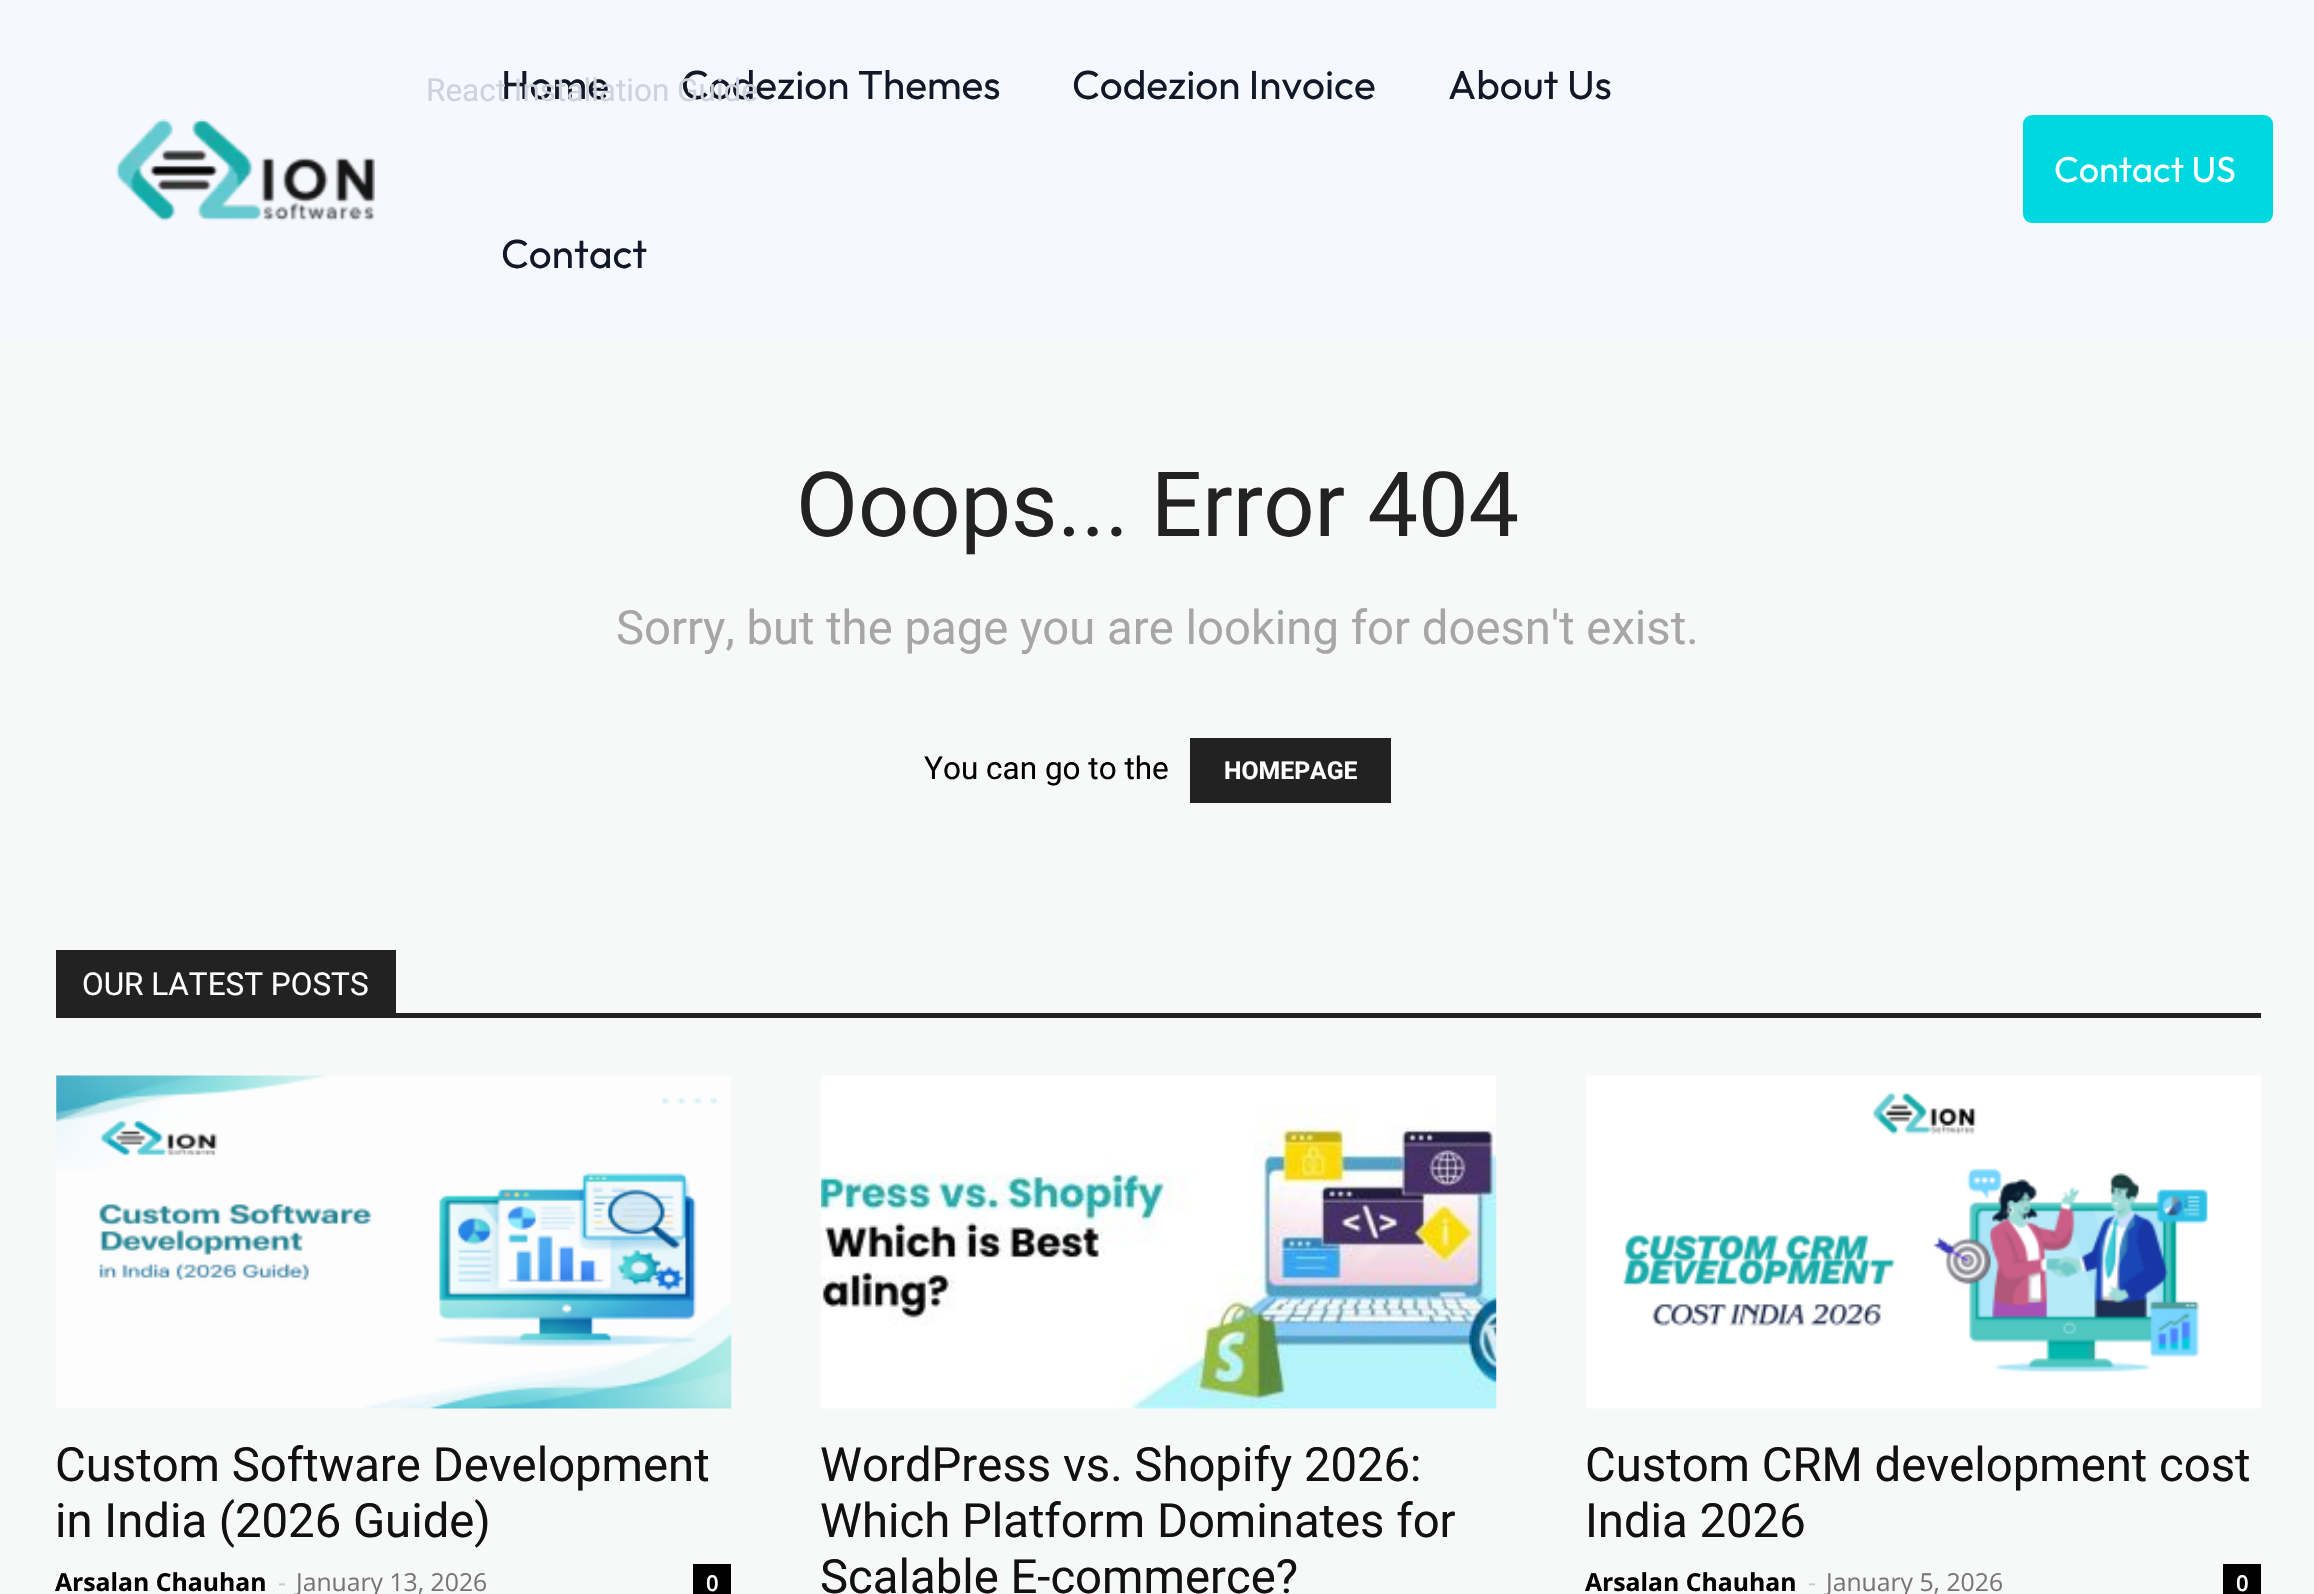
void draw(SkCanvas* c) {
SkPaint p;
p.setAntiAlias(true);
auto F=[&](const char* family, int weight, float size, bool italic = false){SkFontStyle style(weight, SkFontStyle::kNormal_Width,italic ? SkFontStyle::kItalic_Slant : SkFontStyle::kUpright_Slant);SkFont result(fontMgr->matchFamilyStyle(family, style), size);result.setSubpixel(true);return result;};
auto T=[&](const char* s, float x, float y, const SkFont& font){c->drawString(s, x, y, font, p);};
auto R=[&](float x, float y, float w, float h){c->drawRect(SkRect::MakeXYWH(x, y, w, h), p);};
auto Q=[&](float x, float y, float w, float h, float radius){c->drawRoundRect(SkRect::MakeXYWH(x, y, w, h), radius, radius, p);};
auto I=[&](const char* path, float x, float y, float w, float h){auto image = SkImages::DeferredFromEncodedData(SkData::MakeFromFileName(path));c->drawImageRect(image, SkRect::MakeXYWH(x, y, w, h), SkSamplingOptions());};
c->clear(0xfff7f8f8);
p.setColor(0xfff6f8ff);
R(0,0,2314,338);
I("1.png",115,119,260,102);
auto f1 = F("Outfit",400,40.5);
p.setColor(0xff111827);
T("Home",501,99,f1);
T("Codezion Themes",681,99,f1);
T("Codezion Invoice",1072,99,f1);
T("About Us",1448,99,f1);
T("Contact",501,268,f1);
p.setColor(0xff00d8e0);
Q(2023,115,250,108,9);
auto f2 = F("Outfit",400,36);
p.setColor(0xffffffff);
T("Contact US",2054,182,f2);
auto f3 = F("Roboto",400,90);
p.setColor(0xff222222);
T("Ooops... Error 404",796,536,f3);
auto f4 = F("Roboto",400,47.25);
p.setColor(0xffa6a6a6);
T("Sorry, but the page you are looking for doesn't exist.",616,644,f4);
auto f5 = F("Roboto",400,31.5);
p.setColor(0xff000000);
T("You can go to the",924,779,f5);
p.setColor(0xff222222);
R(1190,738,201,65);
auto f6 = F("Roboto",700,24.75);
p.setColor(0xffffffff);
T("HOMEPAGE",1224,779,f6);
p.setColor(0xff222222);
R(56,1013,2205,5);
R(56,950,340,63);
p.setColor(0xffffffff);
T("OUR LATEST POSTS",82,995,f5);
I("2.png",56,1075,676,334);
p.setColor(0xff111111);
T("Custom Software Development",55,1481,f4);
T("in India (2026 Guide)",55,1537,f4);
auto f7 = F("Open Sans",700,24.75);
p.setColor(0xff000000);
T("Arsalan Chauhan",55,1591,f7);
auto f8 = F("Open Sans",400,24.75);
p.setColor(0xffcccccc);
T("-",278,1591,f8);
p.setColor(0xff767676);
T("January 13, 2026",296,1591,f8);
p.setColor(0xff000000);
R(693,1564,38,30);
auto f9 = F("Open Sans",600,22);
p.setColor(0xffffffff);
T("0",706,1591,f9);
I("3.png",821,1075,676,334);
p.setColor(0xff111111);
T("WordPress vs. Shopify 2026:",820,1481,f4);
T("Which Platform Dominates for",820,1537,f4);
T("Scalable E-commerce?",820,1593,f4);
I("4.png",1586,1075,675,334);
T("Custom CRM development cost",1585,1481,f4);
T("India 2026",1585,1537,f4);
p.setColor(0xff000000);
T("Arsalan Chauhan",1585,1591,f7);
p.setColor(0xffcccccc);
T("-",1808,1591,f8);
p.setColor(0xff767676);
T("January 5, 2026",1826,1591,f8);
p.setColor(0xff000000);
R(2223,1564,38,30);
p.setColor(0xffffffff);
T("0",2236,1591,f9);
p.setColor(0xffcfd2db);
T("React Installation Guide",426,101,f5);
}
